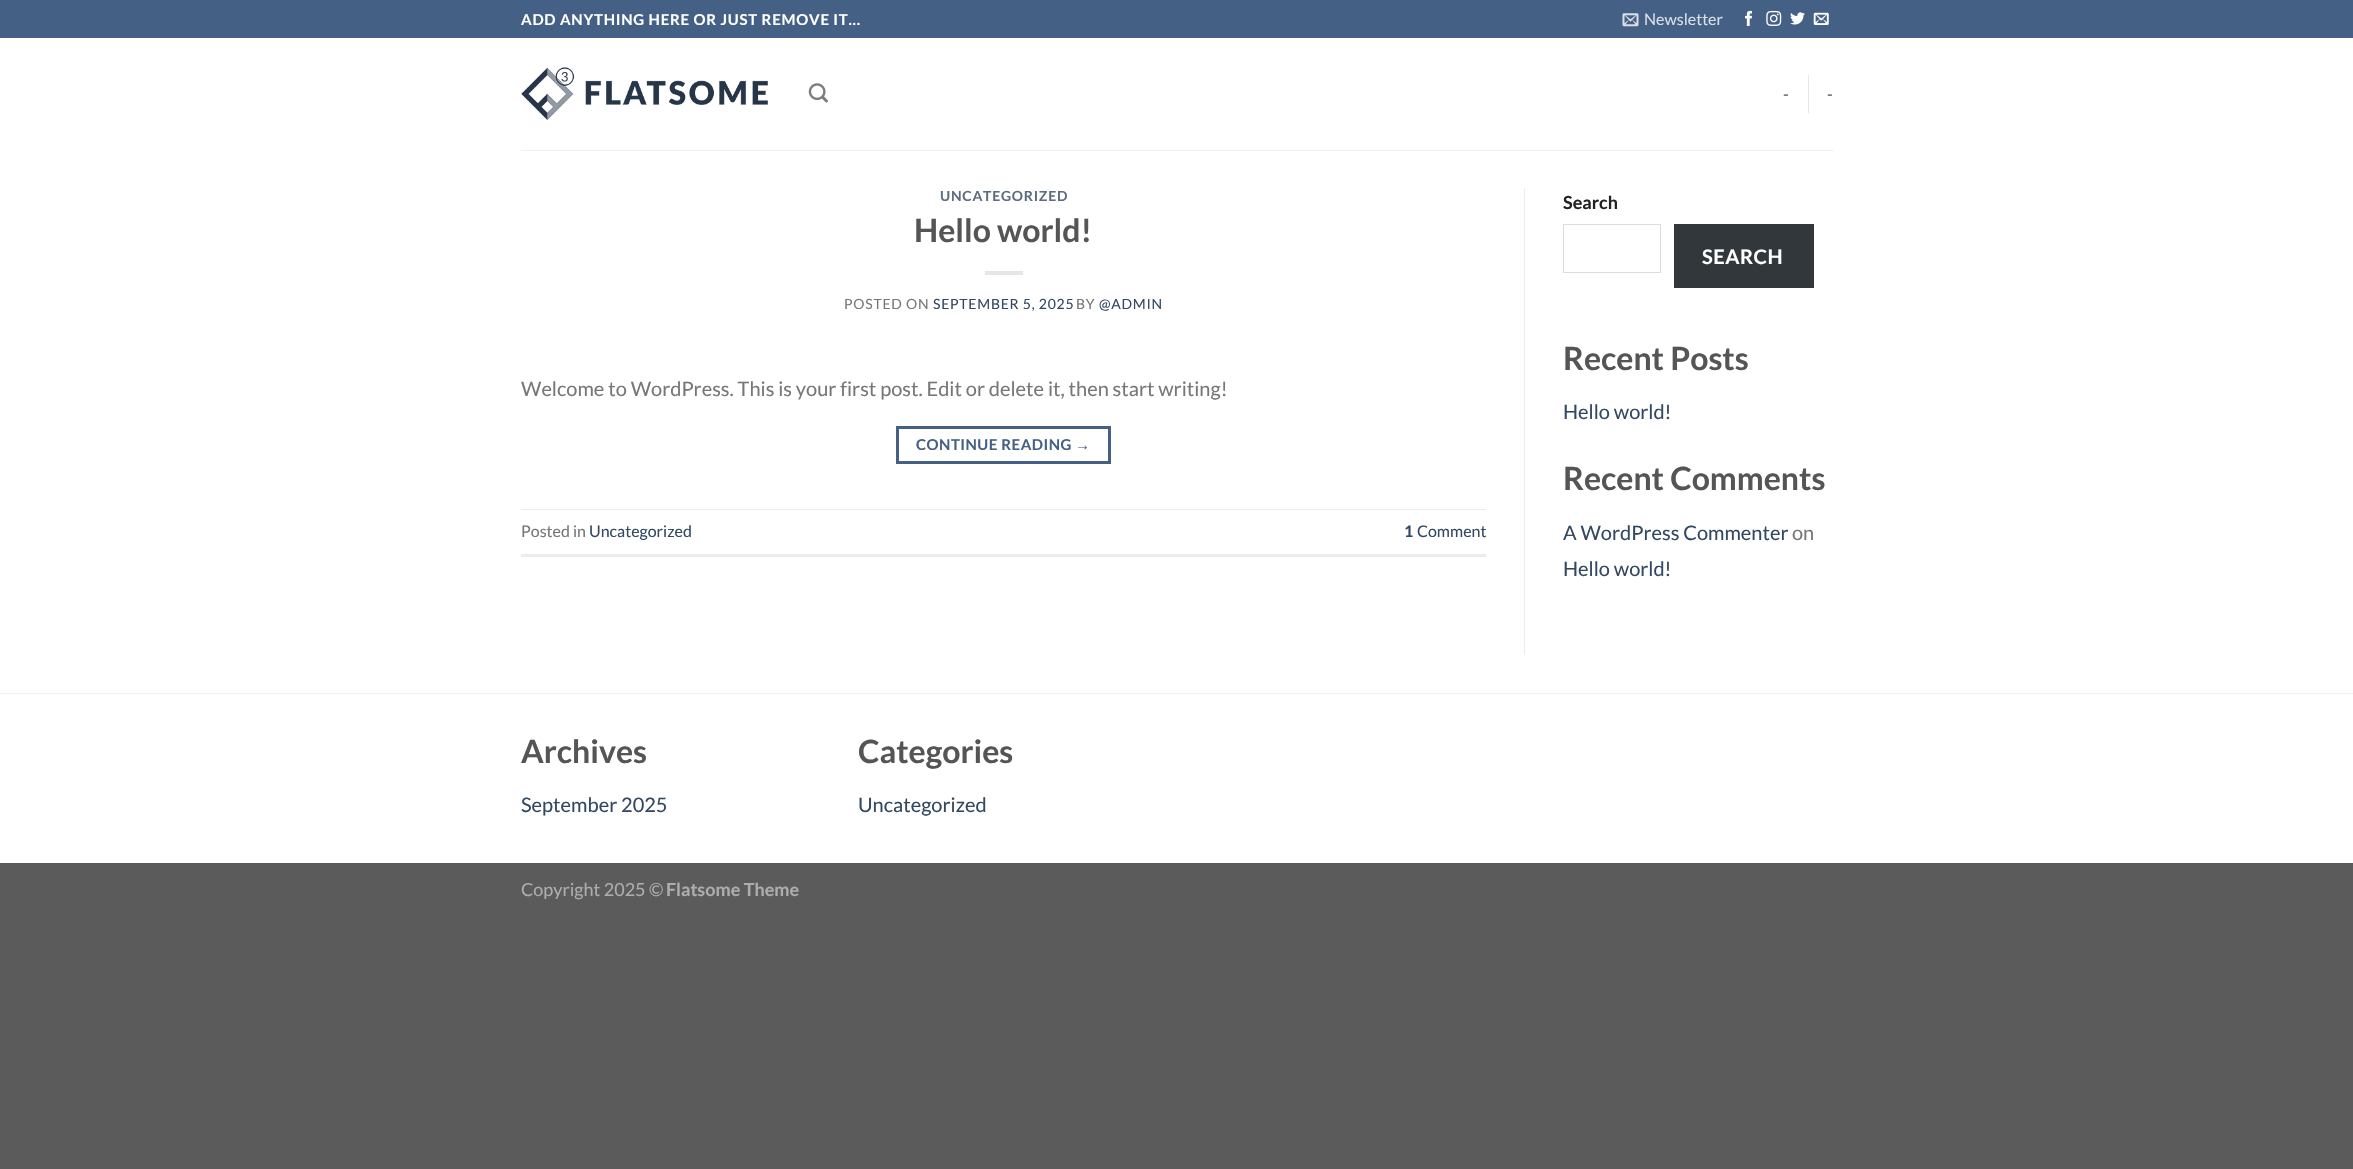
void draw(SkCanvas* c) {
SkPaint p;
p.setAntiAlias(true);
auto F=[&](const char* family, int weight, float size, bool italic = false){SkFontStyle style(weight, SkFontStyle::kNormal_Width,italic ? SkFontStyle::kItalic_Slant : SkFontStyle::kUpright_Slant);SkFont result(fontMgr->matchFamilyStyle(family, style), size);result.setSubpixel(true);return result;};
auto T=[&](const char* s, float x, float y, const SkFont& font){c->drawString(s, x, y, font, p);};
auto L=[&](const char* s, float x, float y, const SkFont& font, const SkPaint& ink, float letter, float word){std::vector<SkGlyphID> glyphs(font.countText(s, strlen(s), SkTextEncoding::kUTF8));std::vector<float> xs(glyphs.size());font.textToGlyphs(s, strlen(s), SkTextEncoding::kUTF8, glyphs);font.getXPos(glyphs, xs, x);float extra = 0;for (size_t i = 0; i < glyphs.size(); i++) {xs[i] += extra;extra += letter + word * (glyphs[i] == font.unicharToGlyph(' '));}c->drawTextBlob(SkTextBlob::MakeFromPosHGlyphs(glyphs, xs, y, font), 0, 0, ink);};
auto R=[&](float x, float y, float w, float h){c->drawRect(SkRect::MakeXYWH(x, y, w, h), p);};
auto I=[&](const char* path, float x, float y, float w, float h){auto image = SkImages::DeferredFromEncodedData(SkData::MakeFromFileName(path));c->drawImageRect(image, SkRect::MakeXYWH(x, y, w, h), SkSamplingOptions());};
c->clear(0xff5b5b5b);
p.setColor(0xffffffff);
R(0,38,2353,825);
p.setColor(0xff446084);
R(0,0,2353,38);
auto f1 = F("Lato",700,15);
p.setColor(0xffffffff);
L("ADD ANYTHING HERE OR JUST REMOVE IT...",521,25,f1,p,.75,0);
I("1.png",1622,13,17,14);
auto f2 = F("Lato",400,16);
p.setColor(0xffdadfe6);
T("Newsletter",1644,25,f2);
I("2.png",1745,10,7,16);
I("3.png",1766,10,16,16);
I("4.png",1790,12,15,13);
I("5.png",1813,12,16,13);
I("6.png",521,67,247,53);
I("7.png",808,83,20,20);
auto f3 = F("Lato",700,16);
p.setColor(0xff7d7d7d);
T("-",1783,100,f3);
p.setColor(0xffe6e6e6);
R(1808,75,1,38);
p.setColor(0xff7d7d7d);
T("-",1827,100,f3);
p.setColor(0xfff1f1f1);
R(521,150,1313,1);
auto f4 = F("Lato",700,14);
p.setColor(0xff5c6d81);
L("UNCATEGORIZED",940,201,f4,p,.75,0);
auto f5 = F("Lato",700,32);
p.setColor(0xff555555);
T("Hello world!",914,242,f5);
p.setColor(0xffe6e6e6);
R(985,271,38,4);
auto f6 = F("Lato",400,14);
p.setColor(0xff777777);
L("POSTED ON",844,309,f6,p,.75,0);
p.setColor(0xff334862);
L("SEPTEMBER 5, 2025",933,309,f6,p,.75,0);
p.setColor(0xff777777);
L("BY",1076,309,f6,p,.75,0);
p.setColor(0xff334862);
L("@ADMIN",1099,309,f6,p,.75,0);
auto f7 = F("Lato",400,20);
p.setColor(0xff777777);
T("Welcome to WordPress. This is your first post. Edit or delete it, then start writing!",521,396,f7);
p.setStroke(true);
p.setStrokeWidth(3);
p.setColor(0xff446084);
c->drawRect(SkRect::MakeXYWH(897.5,427.5,212,35),p);
p.setStroke(false);
L("CONTINUE READING",916,450,f1,p,.5,0);
auto f8 = F("Liberation Sans",700,15);
L("→",1075,450,f8,p,.5,0);
p.setColor(0xffececec);
R(521,509,965,1);
R(521,554,965,3);
p.setColor(0xff777777);
T("Posted in",521,537,f2);
p.setColor(0xff334862);
T("Uncategorized",589,537,f2);
T("1",1404,537,f3);
T("Comment",1417,537,f2);
p.setColor(0xffececec);
R(1524,188,1,467);
auto f9 = F("Lato",700,18);
p.setColor(0xff222222);
T("Search",1563,209,f9);
p.setStroke(true);
p.setStrokeWidth(1);
p.setColor(0xffdddddd);
c->drawRect(SkRect::MakeXYWH(1563.5,224.5,97,48),p);
p.setStroke(false);
p.setColor(0xff32373c);
R(1674,224,140,64);
auto f10 = F("Lato",700,20);
p.setColor(0xffffffff);
L("SEARCH",1702,264,f10,p,.5,0);
p.setColor(0xff555555);
T("Recent Posts",1563,370,f5);
p.setColor(0xff334862);
T("Hello world!",1563,419,f7);
p.setColor(0xff555555);
T("Recent Comments",1563,490,f5);
p.setColor(0xff334862);
T("A WordPress Commenter",1563,540,f7);
p.setColor(0xff777777);
T("on",1792,540,f7);
p.setColor(0xff334862);
T("Hello world!",1563,576,f7);
p.setColor(0xfff2f2f2);
R(0,693,2353,1);
p.setColor(0xff555555);
T("Archives",521,763,f5);
p.setColor(0xff334862);
T("September 2025",521,812,f7);
p.setColor(0xff555555);
T("Categories",858,763,f5);
p.setColor(0xff334862);
T("Uncategorized",858,812,f7);
auto f11 = F("Lato",400,18);
p.setColor(0xffadadad);
T("Copyright 2025 ©",521,896,f11);
T("Flatsome Theme",666,896,f9);
}
